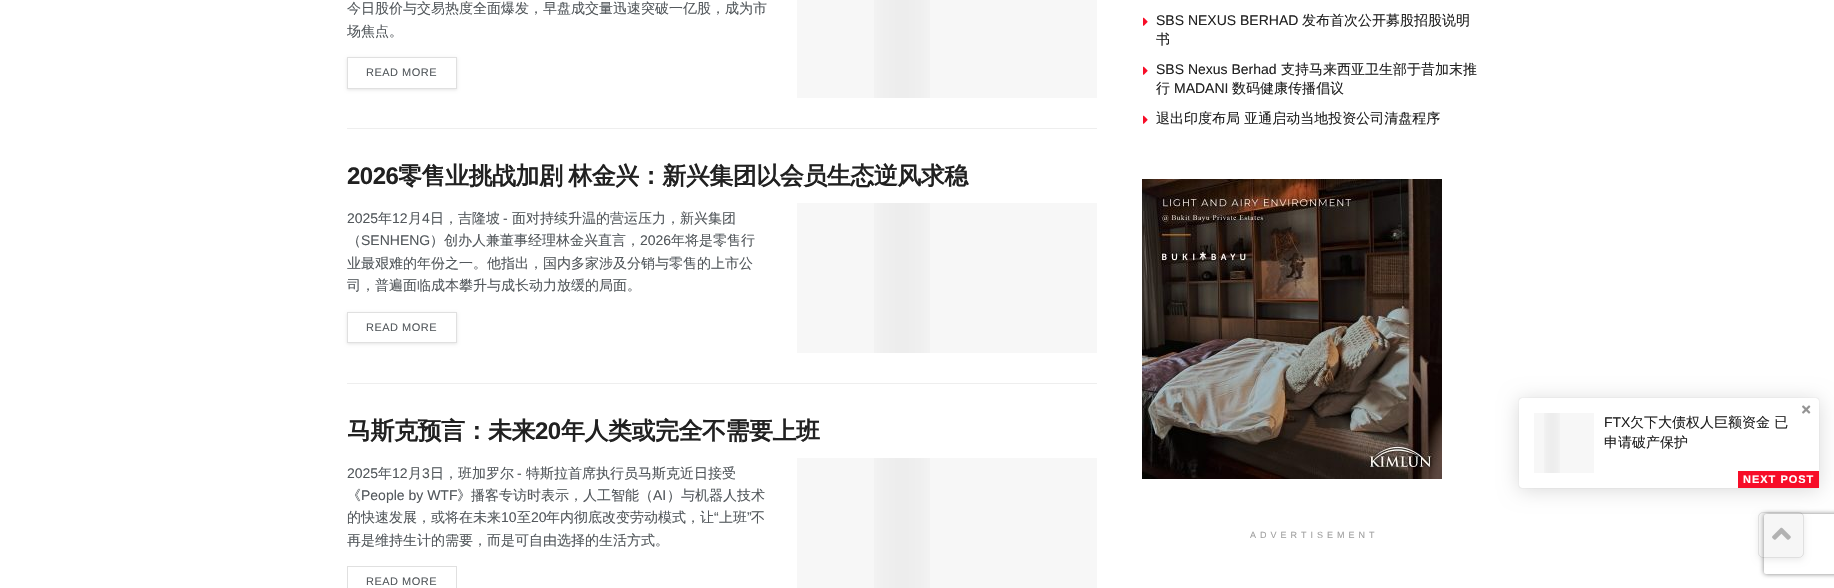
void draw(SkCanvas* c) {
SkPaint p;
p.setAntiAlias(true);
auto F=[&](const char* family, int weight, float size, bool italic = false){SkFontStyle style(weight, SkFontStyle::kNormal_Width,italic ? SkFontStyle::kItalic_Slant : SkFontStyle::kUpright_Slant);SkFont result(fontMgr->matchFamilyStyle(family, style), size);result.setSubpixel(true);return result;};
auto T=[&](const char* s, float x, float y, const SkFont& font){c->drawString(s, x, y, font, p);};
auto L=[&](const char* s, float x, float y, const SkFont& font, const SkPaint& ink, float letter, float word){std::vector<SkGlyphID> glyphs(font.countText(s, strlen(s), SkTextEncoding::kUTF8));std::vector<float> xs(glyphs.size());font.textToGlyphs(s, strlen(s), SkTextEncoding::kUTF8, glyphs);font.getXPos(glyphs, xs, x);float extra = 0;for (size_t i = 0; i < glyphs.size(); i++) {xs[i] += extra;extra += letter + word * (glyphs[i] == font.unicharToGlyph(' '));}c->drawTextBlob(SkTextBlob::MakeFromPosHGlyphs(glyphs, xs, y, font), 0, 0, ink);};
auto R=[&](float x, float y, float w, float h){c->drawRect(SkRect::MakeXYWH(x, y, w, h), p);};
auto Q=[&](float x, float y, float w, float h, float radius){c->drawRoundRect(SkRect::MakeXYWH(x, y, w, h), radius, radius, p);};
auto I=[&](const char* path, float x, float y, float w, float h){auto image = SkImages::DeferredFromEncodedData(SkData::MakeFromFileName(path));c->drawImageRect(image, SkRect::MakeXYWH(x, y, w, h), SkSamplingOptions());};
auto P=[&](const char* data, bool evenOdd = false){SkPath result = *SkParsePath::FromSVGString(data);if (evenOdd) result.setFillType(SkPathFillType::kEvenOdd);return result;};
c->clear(0xffffffff);
p.setColor(0xffeeeeee);
R(347,128,750,1);
auto f1 = F("WenQuanYi Zen Hei",500,14);
p.setColor(0xff53585c);
T("今日股价与交易热度全面爆发，早盘成交量迅速突破一亿股，成为市",347,13,f1);
T("场焦点。",347,36,f1);
c->save();
c->clipPath(P("M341 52h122v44h-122zm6 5h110v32h-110z",true),true);
p.setColor(0x1a000000);
p.setMaskFilter(SkMaskFilter::MakeBlur(kNormal_SkBlurStyle, 1.5));
c->drawRect(SkRect::MakeXYWH(347,58,110,32),p);
p.setMaskFilter(nullptr);
c->restore();
p.setStroke(true);
p.setStrokeWidth(1);
p.setColor(0xffe0e0e0);
c->drawRect(SkRect::MakeXYWH(347.5,57.5,109,31),p);
auto f2 = F("Liberation Sans",400,11);
p.setStroke(false);
p.setColor(0xff53585c);
L("READ MORE",366,76,f2,p,.5,0);
p.setColor(0xfff7f7f7);
R(797,0,300,98);
I("1.png",874,0,56,98);
p.setColor(0xffeeeeee);
R(347,383,750,1);
auto f3 = F("Liberation Sans",700,24);
p.setColor(0xff212121);
L("2026",347,184,f3,p,-.5,0);
auto f4 = F("WenQuanYi Zen Hei",700,24);
L("零售业挑战加剧 林金兴：新兴集团以会员生态逆风求稳",398,184,f4,p,-.5,-1);
auto f5 = F("Liberation Sans",400,14);
p.setColor(0xff53585c);
T("2025",347,223,f5);
T("年",378,223,f1);
T("12",392,223,f5);
T("月",408,223,f1);
T("4",422,223,f5);
T("日，吉隆坡",430,223,f1);
T("-",503,223,f5);
T("面对持续升温的营运压力，新兴集团",512,223,f1);
T("（",347,245,f1);
T("SENHENG",361,245,f5);
T("）创办人兼董事经理林金兴直言，",430,245,f1);
T("2026",640,245,f5);
T("年将是零售行",671,245,f1);
T("业最艰难的年份之一。他指出，国内多家涉及分销与零售的上市公",347,268,f1);
T("司，普遍面临成本攀升与成长动力放缓的局面。",347,290,f1);
c->save();
c->clipPath(P("M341 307h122v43h-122zm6 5h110v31h-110z",true),true);
p.setColor(0x1a000000);
p.setMaskFilter(SkMaskFilter::MakeBlur(kNormal_SkBlurStyle, 1.5));
c->drawRect(SkRect::MakeXYWH(347,313,110,31),p);
p.setMaskFilter(nullptr);
c->restore();
p.setStroke(true);
p.setColor(0xffe0e0e0);
c->drawRect(SkRect::MakeXYWH(347.5,312.5,109,30),p);
p.setStroke(false);
p.setColor(0xff53585c);
L("READ MORE",366,331,f2,p,.5,0);
p.setColor(0xfff7f7f7);
R(797,203,300,150);
I("2.png",874,203,56,150);
p.setColor(0xff212121);
L("马斯克预言：未来",347,439,f4,p,-.5,0);
L("20",535,439,f3,p,-.5,0);
L("年人类或完全不需要上班",561,439,f4,p,-.5,0);
p.setColor(0xff53585c);
T("2025",347,478,f5);
T("年",378,478,f1);
T("12",392,478,f5);
T("月",408,478,f1);
T("3",422,478,f5);
T("日，班加罗尔",430,478,f1);
T("-",517,478,f5);
T("特斯拉首席执行员马斯克近日接受",526,478,f1);
T("《",347,500,f1);
T("People by WTF",361,500,f5);
T("》播客专访时表示，人工智能（",457,500,f1);
T("AI",653,500,f5);
T("）与机器人技术",667,500,f1);
T("的快速发展，或将在未来",347,522,f1);
T("10",501,522,f5);
T("至",517,522,f1);
T("20",531,522,f5);
T("年内彻底改变劳动模式，让",546,522,f1);
T("“",714,522,f5);
T("上班",719,522,f1);
T("”",747,522,f5);
T("不",751,522,f1);
T("再是维持生计的需要，而是可自由选择的生活方式。",347,545,f1);
p.setStroke(true);
p.setColor(0xffe0e0e0);
c->drawRect(SkRect::MakeXYWH(347.5,566.5,109,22),p);
p.setStroke(false);
p.setColor(0xff53585c);
L("READ MORE",366,585,f2,p,.5,0);
p.setColor(0xfff7f7f7);
R(797,458,300,130);
I("3.png",874,458,56,130);
p.setColor(0x26000000);
p.setMaskFilter(SkMaskFilter::MakeBlur(kNormal_SkBlurStyle, 10));
c->drawRoundRect(SkRect::MakeXYWH(1519,400,300,90),3,3,p);
p.setMaskFilter(nullptr);
p.setColor(0x33000000);
p.setMaskFilter(SkMaskFilter::MakeBlur(kNormal_SkBlurStyle, .5));
c->drawRoundRect(SkRect::MakeXYWH(1519,398,300,90),3,3,p);
p.setMaskFilter(nullptr);
p.setColor(0xffffffff);
Q(1519,398,300,90,3);
I("4.png",1802,405,9,9);
p.setColor(0xfff7f7f7);
R(1534,413,60,60);
I("5.png",1544,413,16,60);
p.setColor(0xff212121);
T("FTX",1604,427,f5);
T("欠下大债权人巨额资金 已",1630,427,f1);
T("申请破产保护",1604,447,f1);
p.setColor(0xfff70d28);
R(1738,471,81,17);
auto f6 = F("Liberation Sans",700,11);
p.setColor(0xffffffff);
L("NEXT POST",1743,483,f6,p,1,0);
I("6.png",1143,17,5,9);
p.setColor(0xff212121);
T("SBS NEXUS BERHAD",1156,25,f5);
T("发布首次公开募股招股说明",1302,25,f1);
T("书",1156,44,f1);
I("6.png",1143,66,5,9);
T("SBS Nexus Berhad",1156,74,f5);
T("支持马来西亚卫生部于昔加末推",1281,74,f1);
T("行",1156,93,f1);
T("MADANI",1174,93,f5);
T("数码健康传播倡议",1232,93,f1);
I("6.png",1143,115,5,9);
T("退出印度布局 亚通启动当地投资公司清盘程序",1156,123,f1);
I("7.png",1142,179,300,300);
auto f7 = F("Liberation Sans",400,9);
p.setColor(0xffa0a0a0);
L("ADVERTISEMENT",1250,538,f7,p,4,0);
c->save();
c->clipPath(P("M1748 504h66v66h-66zm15 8h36c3 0 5 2 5 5v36c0 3-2 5-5 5h-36c-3 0-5-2-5-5v-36c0-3 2-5 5-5z",true),true);
p.setColor(0x14000000);
p.setMaskFilter(SkMaskFilter::MakeBlur(kNormal_SkBlurStyle, 3));
c->drawRoundRect(SkRect::MakeXYWH(1758,514,46,46),5,5,p);
p.setMaskFilter(nullptr);
c->restore();
c->save();
c->clipPath(P("M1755 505h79v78h-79zm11 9h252c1 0 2 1 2 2v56c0 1-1 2-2 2h-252c-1 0-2-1-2-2v-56c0-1 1-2 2-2z",true),true);
p.setColor(0xff808080);
p.setMaskFilter(SkMaskFilter::MakeBlur(kNormal_SkBlurStyle, 2.5));
c->drawRoundRect(SkRect::MakeXYWH(1764,514,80,60),2,2,p);
p.setMaskFilter(nullptr);
c->restore();
p.setColor(0x1fb4b4b4);
Q(1758,512,46,46,5);
p.setStroke(true);
p.setColor(0x14ffffff);
c->drawRoundRect(SkRect::MakeXYWH(1759.5,513.5,43,43),3.5,3.5,p);
p.setColor(0x17000000);
c->drawRoundRect(SkRect::MakeXYWH(1758.5,512.5,45,45),4.5,4.5,p);
I("8.png",1772,527,19,13);
}
